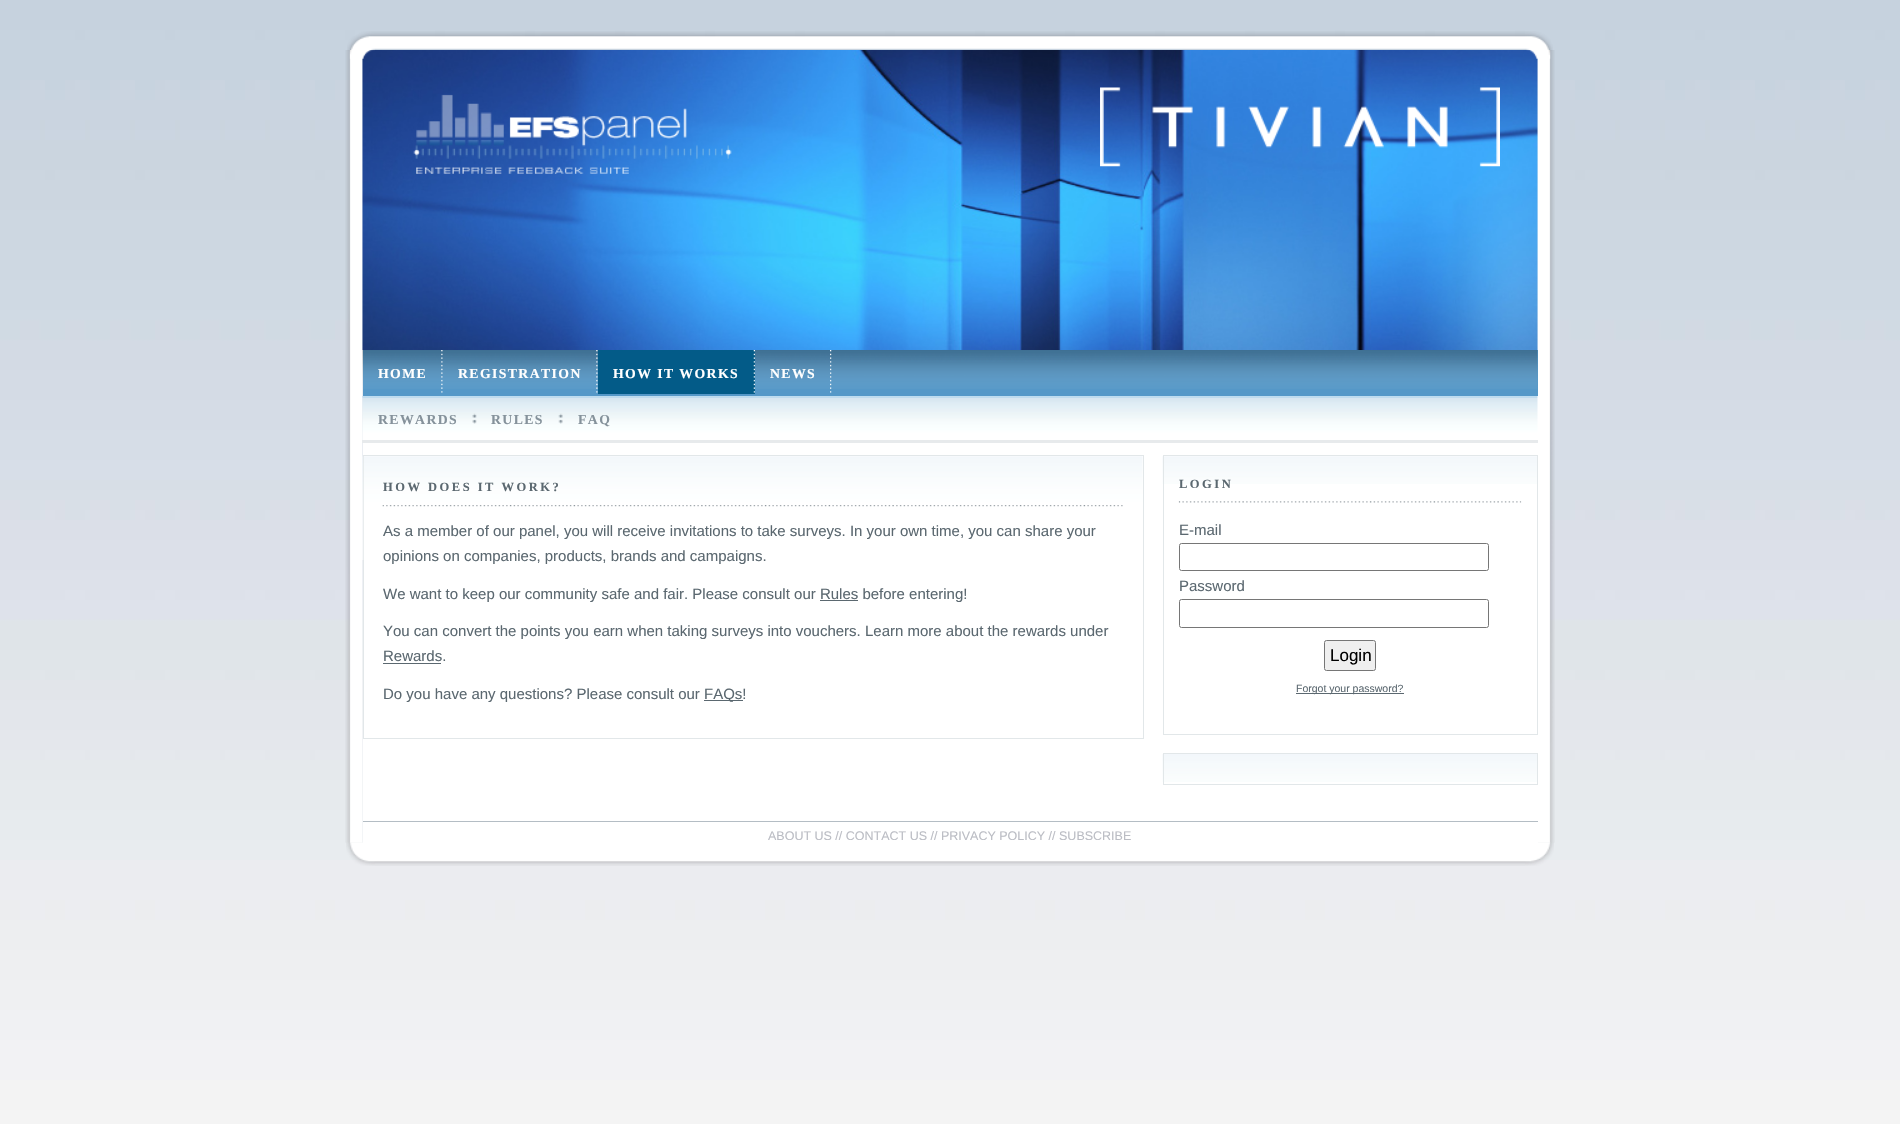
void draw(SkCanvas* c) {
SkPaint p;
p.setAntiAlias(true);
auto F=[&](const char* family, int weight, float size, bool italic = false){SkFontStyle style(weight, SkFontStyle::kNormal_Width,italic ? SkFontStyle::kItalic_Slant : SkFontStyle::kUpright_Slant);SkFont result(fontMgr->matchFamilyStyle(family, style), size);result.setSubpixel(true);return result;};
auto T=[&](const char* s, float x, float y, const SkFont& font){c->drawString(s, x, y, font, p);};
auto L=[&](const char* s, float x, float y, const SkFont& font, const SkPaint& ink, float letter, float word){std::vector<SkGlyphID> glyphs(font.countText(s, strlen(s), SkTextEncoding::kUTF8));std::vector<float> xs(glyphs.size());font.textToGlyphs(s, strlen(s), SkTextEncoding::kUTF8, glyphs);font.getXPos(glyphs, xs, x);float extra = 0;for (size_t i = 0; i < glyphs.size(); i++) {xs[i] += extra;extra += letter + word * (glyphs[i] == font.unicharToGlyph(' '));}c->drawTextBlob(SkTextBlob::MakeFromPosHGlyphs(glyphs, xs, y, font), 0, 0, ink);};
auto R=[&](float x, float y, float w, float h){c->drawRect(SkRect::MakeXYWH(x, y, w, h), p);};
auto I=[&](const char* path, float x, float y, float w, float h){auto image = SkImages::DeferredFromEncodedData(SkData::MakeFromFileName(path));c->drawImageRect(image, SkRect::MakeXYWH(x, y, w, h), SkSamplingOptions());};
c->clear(0xffffffff);
I("1.png",0,0,1900,1124);
I("24.png",346,842,29,24);
I("5.png",345,50,18,793);
I("26.png",1525,842,29,24);
I("6.png",1537,50,18,793);
I("7.png",362,50,1176,300);
I("2.png",347,31,28,28);
I("3.png",375,31,1150,18);
I("4.png",1525,31,28,28);
I("8.png",413,94,319,80);
I("9.png",1100,87,400,80);
p.setColor(0xffffffff);
R(363,396,1175,44);
p.setColor(0xff5598c8);
R(363,350,1175,46);
I("10.png",362,350,1176,39);
I("11.png",441,350,2,43);
auto f1 = F("Liberation Serif",700,13.75);
p.setColor(0xffffffff);
L("HOME",378,378,f1,p,1.4,0);
I("12.png",596,350,2,43);
L("REGISTRATION",458,378,f1,p,1.4,0);
p.setColor(0xff035b88);
R(598,350,157,44);
I("13.png",753,350,2,43);
p.setColor(0xffffffff);
L("HOW IT WORKS",613,378,f1,p,1.4,0);
I("14.png",830,350,2,43);
L("NEWS",770,378,f1,p,1.4,0);
I("15.png",362,396,1176,44);
p.setColor(0xffe7eaec);
R(362,440,1176,3);
p.setColor(0xff85929b);
L("REWARDS",378,424,f1,p,1.4,0);
I("16.png",472,413,5,11);
L("RULES",491,424,f1,p,1.4,0);
I("17.png",558,413,5,11);
L("FAQ",578,424,f1,p,1.4,0);
p.setColor(0xffffffff);
R(363,443,1175,378);
I("18.png",362,456,1,104);
p.setStroke(true);
p.setStrokeWidth(1);
p.setColor(0xffe2e7e9);
c->drawRect(SkRect::MakeXYWH(363.5,455.5,780,283),p);
I("19.png",363,456,780,104);
I("20.png",382,505,741,2);
auto f2 = F("Liberation Serif",700,12.5);
p.setStroke(false);
p.setColor(0xff5b6870);
L("HOW DOES IT WORK?",383,491,f2,p,2.5,0);
auto f3 = F("Liberation Sans",400,15);
T("As a member of our panel, you will receive invitations to take surveys. In your own time, you can share your",383,536,f3);
T("opinions on companies, products, brands and campaigns.",383,561,f3);
T("We want to keep our community safe and fair. Please consult our Rules before entering!",383,599,f3);
R(820,600,38,1);
T("You can convert the points you earn when taking surveys into vouchers. Learn more about the rewards under",383,636,f3);
T("Rewards.",383,661,f3);
R(383,663,58,1);
T("Do you have any questions? Please consult our",383,699,f3);
R(704,700,39,1);
T("FAQs!",704,699,f3);
I("21.png",1162,456,375,28);
p.setStroke(true);
p.setColor(0xffe2e7e9);
c->drawRect(SkRect::MakeXYWH(1163.5,455.5,374,279),p);
I("22.png",1178,501,344,2);
p.setStroke(false);
p.setColor(0xff5b6870);
L("LOGIN",1179,488,f2,p,2.5,0);
T("E-mail",1179,535,f3);
p.setStroke(true);
p.setColor(0xff767676);
c->drawRoundRect(SkRect::MakeXYWH(1179.5,543.5,309,27),2,2,p);
p.setStroke(false);
p.setColor(0xff5b6870);
T("Password",1179,591,f3);
p.setStroke(true);
p.setColor(0xff767676);
c->drawRoundRect(SkRect::MakeXYWH(1179.5,599.5,309,28),2,2,p);
p.setStroke(false);
p.setColor(0xffefefef);
c->drawRoundRect(SkRect::MakeXYWH(1324.5,640.5,51,30),2,2,p);
p.setStroke(true);
p.setColor(0xff767676);
c->drawRoundRect(SkRect::MakeXYWH(1324.5,640.5,51,30),2,2,p);
auto f4 = F("Liberation Sans",400,17);
p.setStroke(false);
p.setColor(0xff000000);
T("Login",1330,661,f4);
p.setColor(0xff5b6870);
R(1296,693,108,1);
auto f5 = F("Liberation Sans",400,10.5);
T("Forgot your password?",1296,692,f5);
I("23.png",1162,754,375,28);
p.setStroke(true);
p.setColor(0xffe2e7e9);
c->drawRect(SkRect::MakeXYWH(1163.5,753.5,374,31),p);
p.setStroke(false);
p.setColor(0xffffffff);
R(363,822,1175,21);
p.setColor(0xffb4bdc4);
R(363,821,1175,1);
auto f6 = F("Liberation Sans",400,12.5);
p.setColor(0xffbbbdc4);
T("ABOUT US // CONTACT US // PRIVACY POLICY // SUBSCRIBE",768,840,f6);
I("25.png",375,843,1150,23);
}
